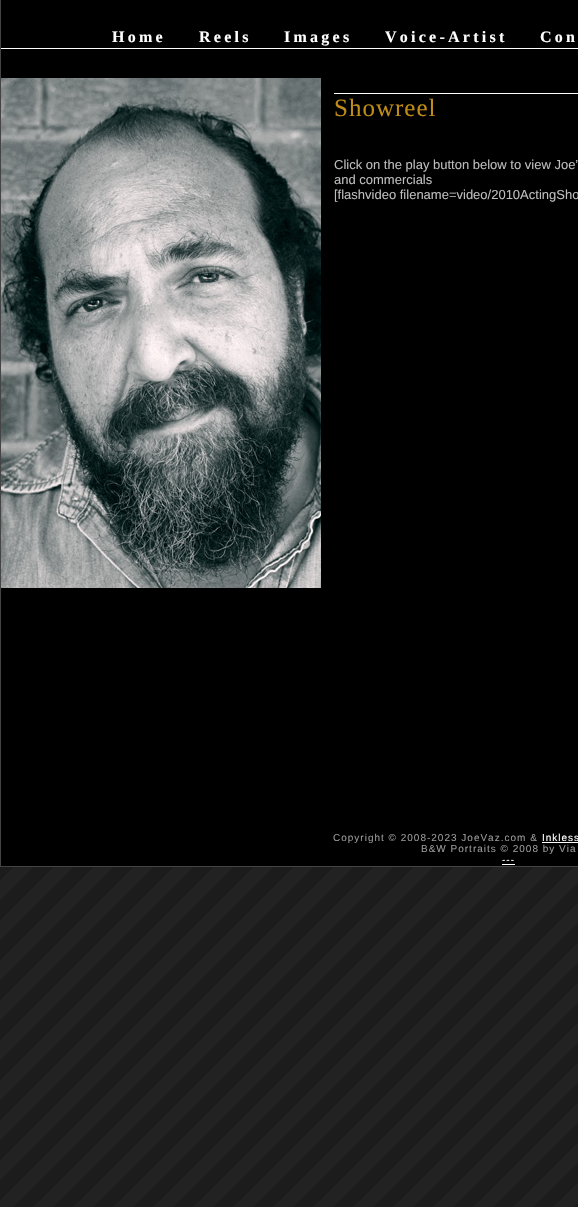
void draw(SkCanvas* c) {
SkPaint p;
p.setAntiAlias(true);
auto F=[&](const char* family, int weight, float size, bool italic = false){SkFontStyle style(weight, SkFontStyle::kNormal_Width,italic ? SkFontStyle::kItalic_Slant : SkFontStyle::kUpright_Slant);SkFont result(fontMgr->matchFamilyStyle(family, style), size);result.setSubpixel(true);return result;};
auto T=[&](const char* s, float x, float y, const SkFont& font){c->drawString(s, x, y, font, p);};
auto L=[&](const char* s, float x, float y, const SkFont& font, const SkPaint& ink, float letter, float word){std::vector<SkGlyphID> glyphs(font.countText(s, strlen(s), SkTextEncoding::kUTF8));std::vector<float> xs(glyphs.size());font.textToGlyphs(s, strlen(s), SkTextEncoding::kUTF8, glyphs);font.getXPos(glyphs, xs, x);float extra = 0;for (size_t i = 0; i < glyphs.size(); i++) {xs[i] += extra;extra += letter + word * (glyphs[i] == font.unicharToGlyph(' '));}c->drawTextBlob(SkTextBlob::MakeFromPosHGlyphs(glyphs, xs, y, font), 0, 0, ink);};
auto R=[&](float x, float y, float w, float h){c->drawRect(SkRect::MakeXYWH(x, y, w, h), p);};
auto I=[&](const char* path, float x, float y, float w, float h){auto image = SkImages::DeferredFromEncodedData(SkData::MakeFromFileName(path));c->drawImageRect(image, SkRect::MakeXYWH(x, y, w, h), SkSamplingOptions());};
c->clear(0xffffffff);
I("1.png",0,867,578,340);
p.setColor(0xff000000);
R(1,0,577,866);
p.setColor(0xff444444);
R(0,0,1,867);
auto f1 = F("Liberation Serif",700,16);
p.setColor(0xffffffff);
L("Home",112,42,f1,p,3.25,0);
L("Reels",199,42,f1,p,3.25,0);
L("Images",284,42,f1,p,3.25,0);
L("Voice-Artist",385,42,f1,p,3.25,0);
L("Con",540,42,f1,p,3.25,0);
R(1,48,577,1);
I("2.png",1,78,320,510);
R(334,93,244,1);
auto f2 = F("Liberation Serif",400,25);
p.setColor(0xffbf8c19);
L("Showreel",334,116,f2,p,1,0);
auto f3 = F("Liberation Sans",400,13);
p.setColor(0xffbdbdbd);
T("Click on the play button below to view Joe’",334,169,f3);
T("and commercials",334,184,f3);
T("[flashvideo filename=video/2010ActingSho",334,199,f3);
p.setColor(0xff444444);
R(1,866,577,1);
auto f4 = F("Liberation Sans",400,10);
p.setColor(0xff999999);
L("Copyright © 2008-2023 JoeVaz.com &",333,841,f4,p,1,0);
p.setColor(0xffffffff);
L("Inkless",542,841,f4,p,1,0);
p.setColor(0xfffefefe);
R(542,842,36,1);
p.setColor(0xff999999);
L("B&W Portraits © 2008 by Via",421,852,f4,p,1,0);
p.setColor(0xffffffff);
L("---",502,863,f4,p,1,0);
p.setColor(0xfffefefe);
R(502,864,13,1);
}
